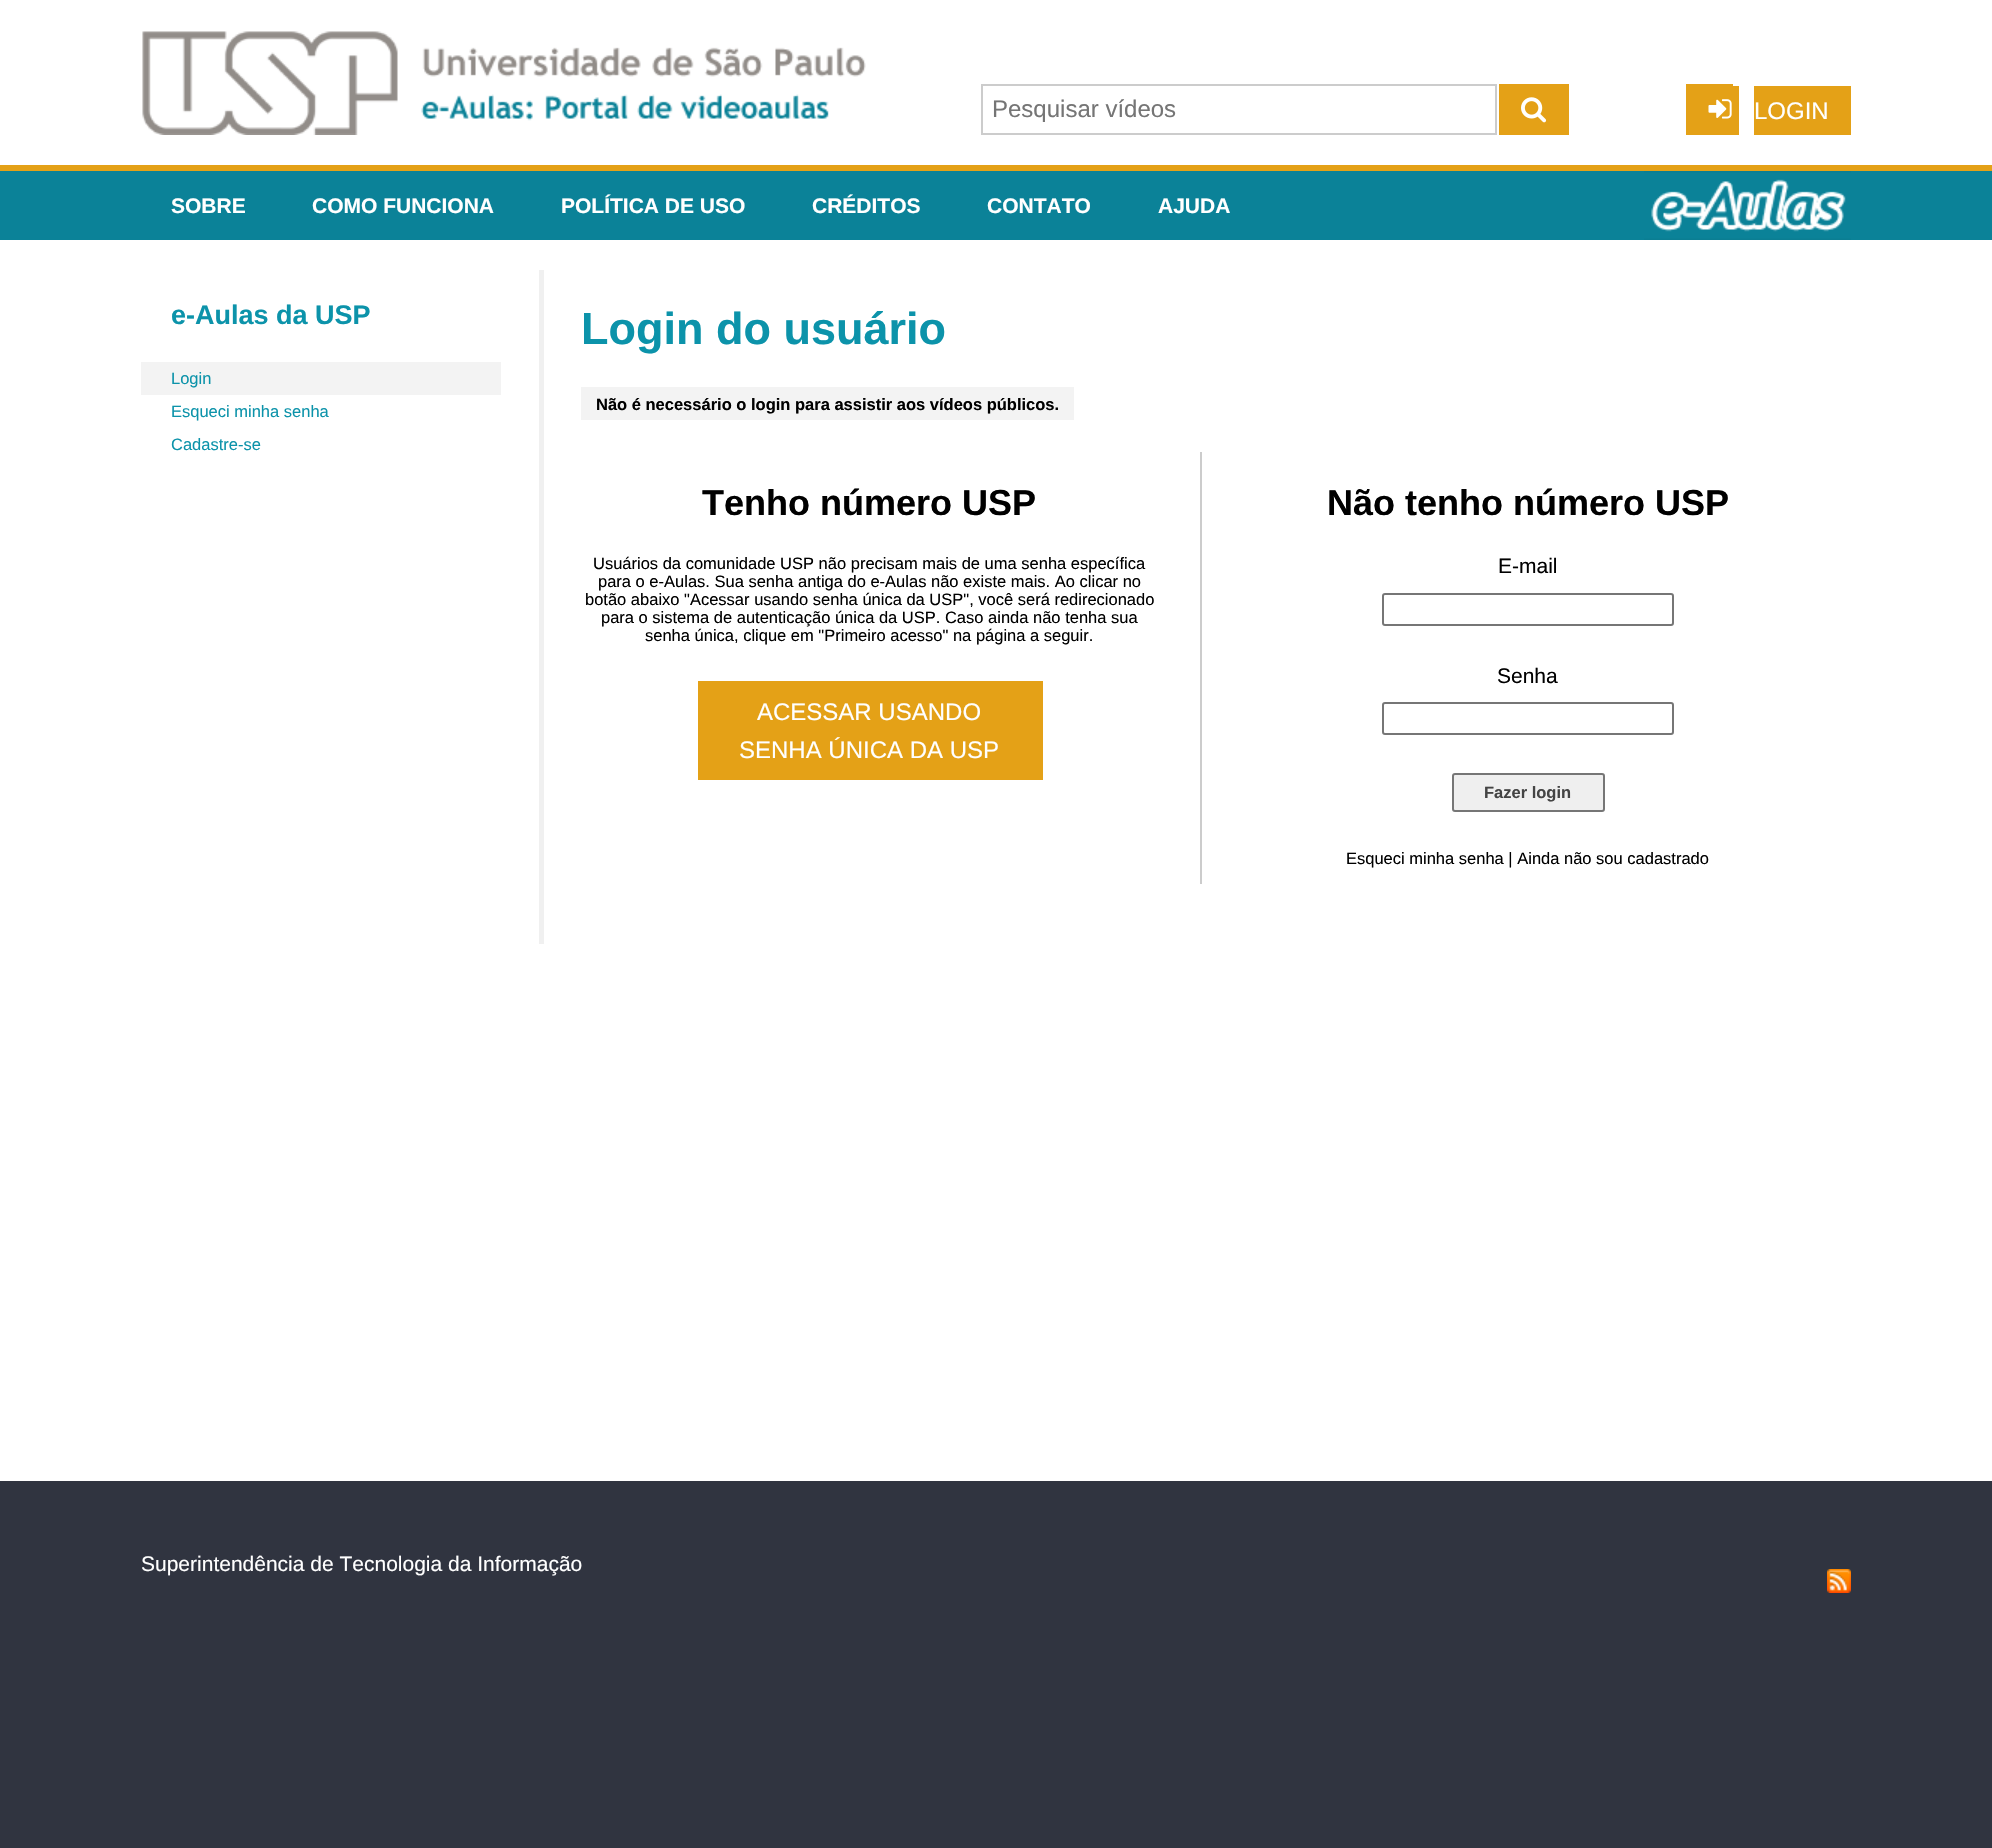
void draw(SkCanvas* c) {
SkPaint p;
p.setAntiAlias(true);
auto F=[&](const char* family, int weight, float size, bool italic = false){SkFontStyle style(weight, SkFontStyle::kNormal_Width,italic ? SkFontStyle::kItalic_Slant : SkFontStyle::kUpright_Slant);SkFont result(fontMgr->matchFamilyStyle(family, style), size);result.setSubpixel(true);return result;};
auto T=[&](const char* s, float x, float y, const SkFont& font){c->drawString(s, x, y, font, p);};
auto R=[&](float x, float y, float w, float h){c->drawRect(SkRect::MakeXYWH(x, y, w, h), p);};
auto I=[&](const char* path, float x, float y, float w, float h){auto image = SkImages::DeferredFromEncodedData(SkData::MakeFromFileName(path));c->drawImageRect(image, SkRect::MakeXYWH(x, y, w, h), SkSamplingOptions());};
c->clear(0xffffffff);
I("1.png",142,31,724,104);
p.setStroke(true);
p.setStrokeWidth(2);
p.setColor(0xffcccccc);
c->drawRect(SkRect::MakeXYWH(982,85,514,49),p);
auto f1 = F("Liberation Sans",400,24);
p.setStroke(false);
p.setColor(0xff757575);
T("Pesquisar vídeos",992,117,f1);
p.setColor(0xffe4a117);
R(1499,84,70,51);
I("2.png",1521,97,26,26);
R(1686,84,47,51);
I("3.png",1708,99,24,20);
R(1754,86,97,49);
p.setColor(0xffffffff);
T("LOGIN",1754,119,f1);
p.setColor(0xffe4a117);
R(1733,86,6,49);
p.setColor(0xff0b8298);
R(0,171,1992,69);
p.setColor(0xffe4a117);
R(0,165,1992,6);
I("4.png",1644,171,207,69);
auto f2 = F("Liberation Sans",700,21);
p.setColor(0xffffffff);
T("SOBRE",171,213,f2);
T("COMO FUNCIONA",312,213,f2);
T("POLÍTICA DE USO",561,213,f2);
T("CRÉDITOS",812,213,f2);
T("CONTATO",987,213,f2);
T("AJUDA",1158,213,f2);
auto f3 = F("Liberation Sans",700,27);
p.setColor(0xff0c93aa);
T("e-Aulas da USP",171,324,f3);
p.setColor(0xfff3f3f3);
R(141,362,360,33);
auto f4 = F("Liberation Sans",400,16.5);
p.setColor(0xff0c93aa);
T("Login",171,384,f4);
T("Esqueci minha senha",171,417,f4);
T("Cadastre-se",171,450,f4);
p.setColor(0xfff0f0f0);
R(539,270,5,674);
auto f5 = F("Liberation Sans",700,45);
p.setColor(0xff0c93aa);
T("Login do usuário",581,344,f5);
p.setColor(0xfff3f3f3);
R(581,387,493,33);
auto f6 = F("Liberation Sans",700,16.5);
p.setColor(0xff000000);
T("Não é necessário o login para assistir aos vídeos públicos.",596,410,f6);
auto f7 = F("Liberation Sans",700,36);
T("Tenho número USP",702,515,f7);
T("Usuários da comunidade USP não precisam mais de uma senha específica",593,569,f4);
T("para o e-Aulas. Sua senha antiga do e-Aulas não existe mais. Ao clicar no",598,587,f4);
T("botão abaixo \"Acessar usando senha única da USP\", você será redirecionado",585,605,f4);
T("para o sistema de autenticação única da USP. Caso ainda não tenha sua",601,623,f4);
T("senha única, clique em \"Primeiro acesso\" na página a seguir.",645,641,f4);
p.setColor(0xffe4a117);
R(698,681,345,99);
p.setColor(0xffffffff);
T("ACESSAR USANDO",757,720,f1);
T("SENHA ÚNICA DA USP",739,758,f1);
p.setColor(0xffcccccc);
R(1200,452,2,432);
p.setColor(0xff000000);
T("Não tenho número USP",1327,515,f7);
auto f8 = F("Liberation Sans",400,21);
T("E-mail",1498,573,f8);
p.setStroke(true);
p.setColor(0xff767676);
c->drawRoundRect(SkRect::MakeXYWH(1383,594,290,31),2,2,p);
p.setStroke(false);
p.setColor(0xff000000);
T("Senha",1497,683,f8);
p.setStroke(true);
p.setColor(0xff767676);
c->drawRoundRect(SkRect::MakeXYWH(1383,703,290,31),2,2,p);
p.setStroke(false);
p.setColor(0xffefefef);
c->drawRoundRect(SkRect::MakeXYWH(1453,774,151,37),2,2,p);
p.setStroke(true);
p.setColor(0xff767676);
c->drawRoundRect(SkRect::MakeXYWH(1453,774,151,37),2,2,p);
p.setStroke(false);
p.setColor(0xff444444);
T("Fazer login",1484,798,f6);
p.setColor(0xff000000);
T("Esqueci minha senha | Ainda não sou cadastrado",1346,864,f4);
p.setColor(0xff303440);
R(0,1481,1992,367);
p.setColor(0xffffffff);
T("Superintendência de Tecnologia da Informação",141,1571,f8);
I("5.png",1827,1569,24,24);
}
